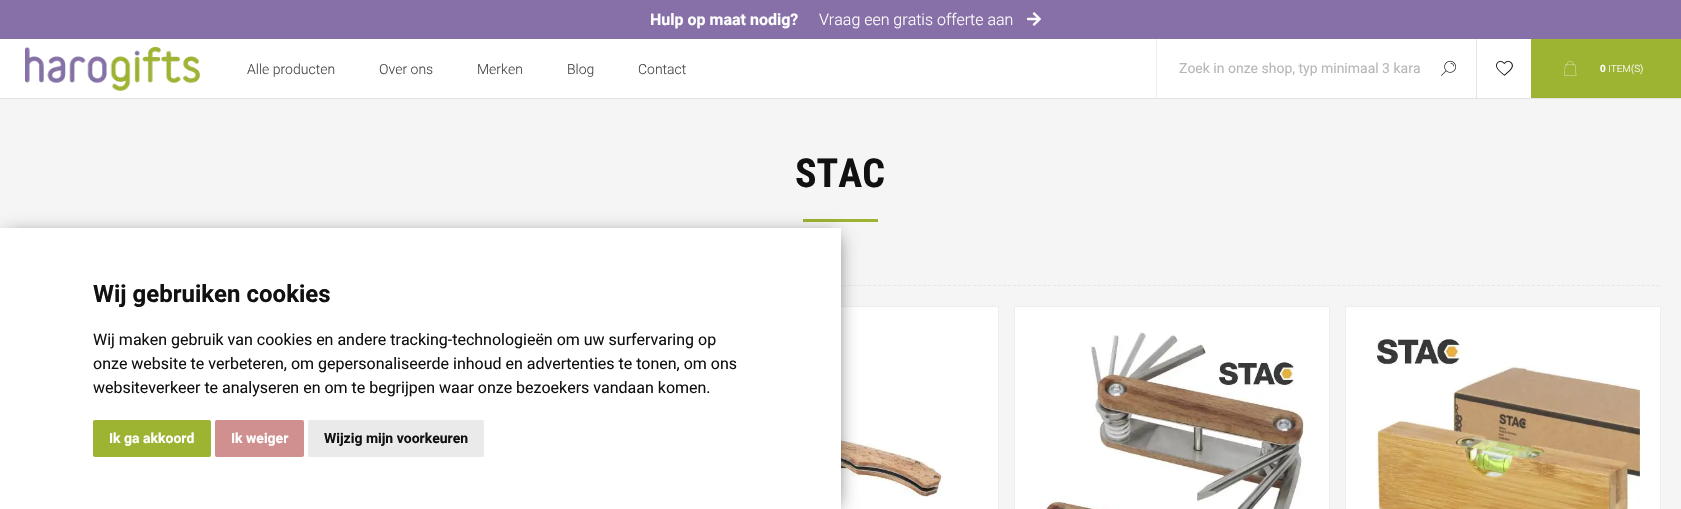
void draw(SkCanvas* c) {
SkPaint p;
p.setAntiAlias(true);
auto F=[&](const char* family, int weight, float size, bool italic = false){SkFontStyle style(weight, SkFontStyle::kNormal_Width,italic ? SkFontStyle::kItalic_Slant : SkFontStyle::kUpright_Slant);SkFont result(fontMgr->matchFamilyStyle(family, style), size);result.setSubpixel(true);return result;};
auto T=[&](const char* s, float x, float y, const SkFont& font){c->drawString(s, x, y, font, p);};
auto R=[&](float x, float y, float w, float h){c->drawRect(SkRect::MakeXYWH(x, y, w, h), p);};
auto Q=[&](float x, float y, float w, float h, float radius){c->drawRoundRect(SkRect::MakeXYWH(x, y, w, h), radius, radius, p);};
auto I=[&](const char* path, float x, float y, float w, float h){auto image = SkImages::DeferredFromEncodedData(SkData::MakeFromFileName(path));c->drawImageRect(image, SkRect::MakeXYWH(x, y, w, h), SkSamplingOptions());};
auto P=[&](const char* data, bool evenOdd = false){SkPath result = *SkParsePath::FromSVGString(data);if (evenOdd) result.setFillType(SkPathFillType::kEvenOdd);return result;};
c->clear(0xfff5f5f5);
p.setColor(0xff8770a7);
R(0,0,1681,39);
auto f1 = F("Roboto",700,16);
p.setColor(0xffffffff);
T("Hulp op maat nodig?",650,25,f1);
auto f2 = F("Roboto",300,16);
T("Vraag een gratis offerte aan",819,25,f2);
I("1.png",1027,12,14,14);
R(0,39,1531,59);
p.setColor(0xffe3e3e3);
R(0,98,1681,1);
I("2.png",25,47,175,44);
auto f3 = F("Roboto",300,14);
p.setColor(0xff444444);
T("Alle producten",247,74,f3);
T("Over ons",379,74,f3);
T("Merken",477,74,f3);
T("Blog",567,74,f3);
T("Contact",638,74,f3);
p.setColor(0xffeeeeee);
R(1156,39,1,59);
auto f4 = F("Roboto",400,14);
p.setColor(0xffb7b7b7);
T("Zoek in onze shop, typ minimaal 3 kara",1179,73,f4);
I("3.png",1441,60,15,16);
p.setColor(0xffe3e3e3);
R(1476,39,1,59);
I("4.png",1496,60,17,16);
p.setColor(0xff9db332);
R(1531,39,150,59);
I("5.png",1564,61,13,15);
auto f5 = F("Roboto",700,10);
p.setColor(0xffffffff);
T("0",1600,72,f5);
auto f6 = F("Roboto",300,10);
T("ITEM(S)",1608,72,f6);
auto f7 = F("Roboto Condensed",700,40);
p.setColor(0xff111111);
T("STAC",795,187,f7);
p.setColor(0xff9db332);
R(803,219,75,3);
p.setStroke(true);
p.setStrokeWidth(1);
p.setColor(0xffe6e6e6);
p.setPathEffect(SkDashPathEffect::Make({{3,1.99f}}, 0));
c->drawPath(P("M20 285.5h1641"),p);
p.setPathEffect(nullptr);
p.setStroke(false);
p.setColor(0xffffffff);
R(841,307,157,202);
p.setStroke(true);
p.setColor(0xffeeeeee);
c->drawRect(SkRect::MakeXYWH(682.5,306.5,316,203),p);
I("6.png",841,426,102,71);
p.setStroke(false);
p.setColor(0xffffffff);
c->drawRect(SkRect::MakeXYWH(1014.5,306.5,315,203),p);
p.setStroke(true);
p.setColor(0xffeeeeee);
c->drawRect(SkRect::MakeXYWH(1014.5,306.5,315,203),p);
I("7.png",1045,332,259,177);
p.setStroke(false);
p.setColor(0xffffffff);
c->drawRect(SkRect::MakeXYWH(1345.5,306.5,315,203),p);
p.setStroke(true);
p.setColor(0xffeeeeee);
c->drawRect(SkRect::MakeXYWH(1345.5,306.5,315,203),p);
I("8.png",1375,338,265,171);
p.setStroke(false);
p.setColor(0xa3000000);
p.setMaskFilter(SkMaskFilter::MakeBlur(kNormal_SkBlurStyle, 9));
c->drawRect(SkRect::MakeXYWH(6,236,831,271),p);
p.setMaskFilter(nullptr);
p.setColor(0xffffffff);
R(0,228,841,281);
auto f8 = F("Roboto",700,24);
p.setColor(0xff111111);
T("Wij gebruiken cookies",93,302,f8);
auto f9 = F("Roboto",400,16);
T("Wij maken gebruik van cookies en andere tracking-technologieën om uw surfervaring op",93,345,f9);
T("onze website te verbeteren, om gepersonaliseerde inhoud en advertenties te tonen, om ons",93,369,f9);
T("websiteverkeer te analyseren en om te begrijpen waar onze bezoekers vandaan komen.",93,393,f9);
p.setColor(0xff9db332);
Q(93,420,118,37,2);
auto f10 = F("Roboto",700,14);
p.setColor(0xffffffff);
T("Ik ga akkoord",109,443,f10);
p.setColor(0xffd09090);
Q(215,420,89,37,2);
p.setColor(0xffffffff);
T("Ik weiger",231,443,f10);
p.setColor(0xffeaeaea);
Q(308,420,176,37,2);
p.setColor(0xff111111);
T("Wijzig mijn voorkeuren",324,443,f10);
}
